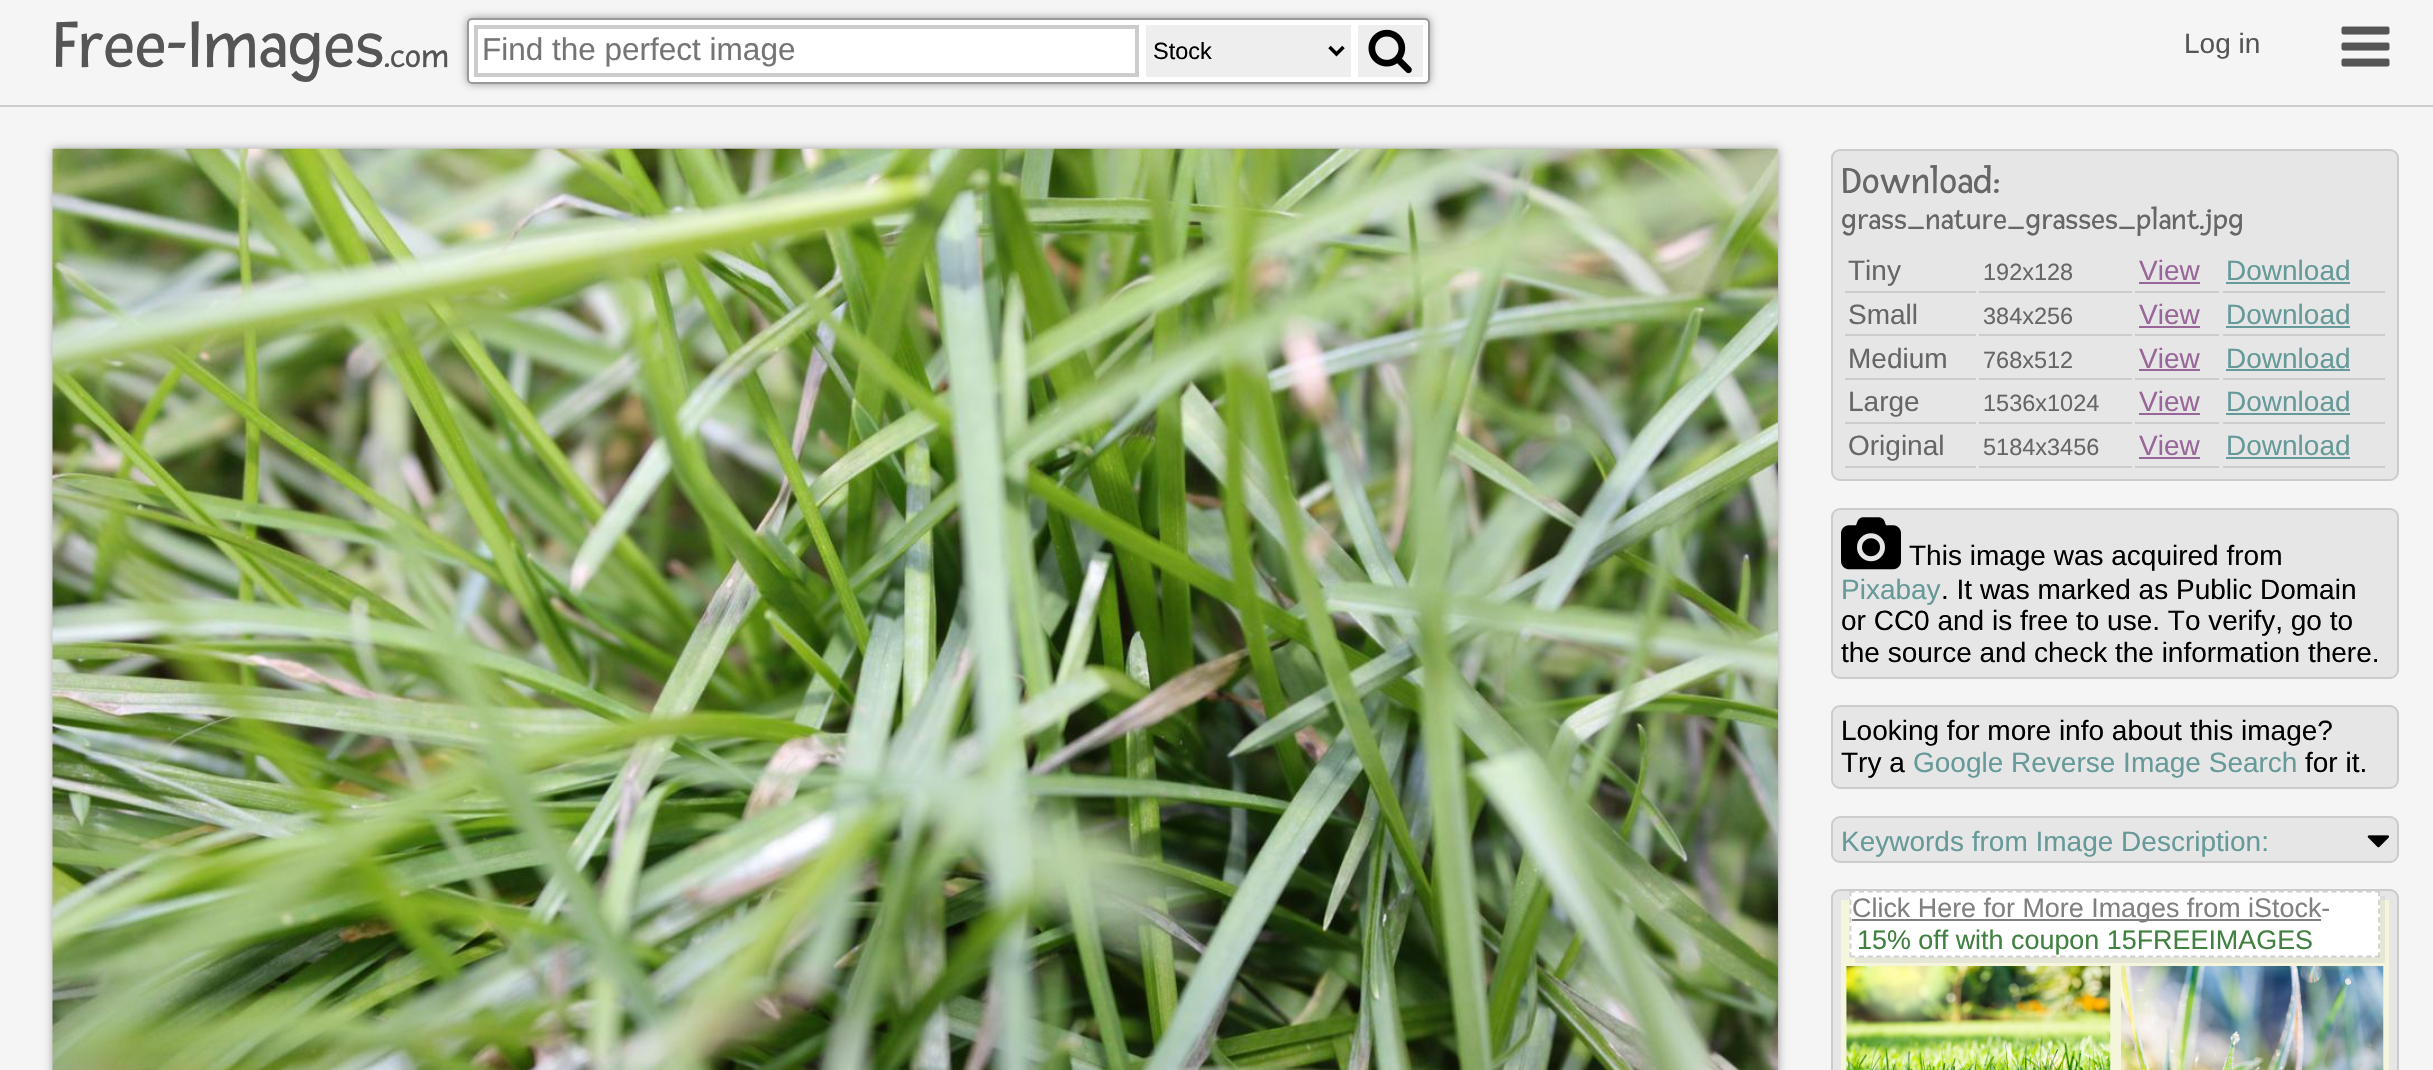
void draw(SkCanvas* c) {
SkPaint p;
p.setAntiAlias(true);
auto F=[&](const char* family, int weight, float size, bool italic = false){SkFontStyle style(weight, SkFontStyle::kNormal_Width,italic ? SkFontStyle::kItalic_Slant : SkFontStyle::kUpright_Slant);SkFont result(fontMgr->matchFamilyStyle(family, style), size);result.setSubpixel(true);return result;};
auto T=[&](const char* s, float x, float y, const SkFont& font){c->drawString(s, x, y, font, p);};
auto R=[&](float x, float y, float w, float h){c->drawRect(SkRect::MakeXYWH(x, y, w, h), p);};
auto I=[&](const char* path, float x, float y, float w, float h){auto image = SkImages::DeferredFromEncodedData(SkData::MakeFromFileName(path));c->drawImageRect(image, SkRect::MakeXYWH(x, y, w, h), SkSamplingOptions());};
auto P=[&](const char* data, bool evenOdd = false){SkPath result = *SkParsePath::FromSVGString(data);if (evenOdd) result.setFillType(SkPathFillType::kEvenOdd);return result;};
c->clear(0xfff5f5f5);
p.setColor(0xffcccccc);
R(0,105,2433,2);
auto f1 = F("Fresca",400,70);
p.setColor(0xff555555);
T("Free-Images",53,67,f1);
auto f2 = F("Fresca",400,35);
T(".com",384,67,f2);
p.setColor(0xff999999);
p.setMaskFilter(SkMaskFilter::MakeBlur(kNormal_SkBlurStyle, 4.5));
c->drawRoundRect(SkRect::MakeXYWH(467,18,963,66),5,5,p);
p.setMaskFilter(nullptr);
p.setColor(0xffffffff);
c->drawRoundRect(SkRect::MakeXYWH(468,19,961,64),4,4,p);
p.setStroke(true);
p.setStrokeWidth(2);
p.setColor(0xff999999);
c->drawRoundRect(SkRect::MakeXYWH(468,19,961,64),4,4,p);
p.setStrokeWidth(4);
p.setColor(0xffcccccc);
c->drawRect(SkRect::MakeXYWH(476,27,661,48),p);
auto f3 = F("Liberation Sans",400,31.5);
p.setStroke(false);
p.setColor(0xff757575);
T("Find the perfect image",482,60,f3);
p.setColor(0xffeeeeee);
R(1146,25,205,52);
p.setStroke(true);
p.setStrokeWidth(3.5);
p.setColor(0xff000000);
c->drawPath(P("M1329.5 47l7 7l7-7"),p);
auto f4 = F("Liberation Sans",400,23.5);
p.setStroke(false);
T("Stock",1153,59,f4);
p.setColor(0xffeeeeee);
R(1358,25,65,52);
I("1.png",1368,29,44,45);
auto f5 = F("Liberation Sans",400,28);
p.setColor(0xff555555);
T("Log in",2184,53,f5);
I("2.png",2341,26,49,41);
p.setColor(0xff999999);
p.setMaskFilter(SkMaskFilter::MakeBlur(kNormal_SkBlurStyle, 4.5));
c->drawRect(SkRect::MakeXYWH(53,149,1725,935),p);
p.setMaskFilter(nullptr);
I("3.png",52,148,1726,922);
p.setColor(0xffe6e6e6);
c->drawRoundRect(SkRect::MakeXYWH(1832,150,566,330),8,8,p);
p.setStroke(true);
p.setStrokeWidth(2);
p.setColor(0xffcccccc);
c->drawRoundRect(SkRect::MakeXYWH(1832,150,566,330),8,8,p);
auto f6 = F("Fresca",400,38.5);
p.setStroke(false);
p.setColor(0xff666666);
T("Download:",1841,193,f6);
auto f7 = F("Fresca",400,30.75);
T("grass_nature_grasses_plant.jpg",1841,229,f7);
p.setColor(0xffcccccc);
R(1845,291,131,2);
p.setColor(0xff666666);
T("Tiny",1848,280,f5);
p.setColor(0xffcccccc);
R(1979,291,153,2);
p.setColor(0xff666666);
T("192x128",1983,280,f4);
p.setColor(0xffcccccc);
R(2135,291,84,2);
p.setColor(0xff996699);
T("View",2139,280,f5);
R(2139,282,61,2);
p.setColor(0xffcccccc);
R(2223,291,162,2);
p.setColor(0xff669999);
T("Download",2226,280,f5);
R(2226,282,124,2);
p.setColor(0xffcccccc);
R(1845,334,131,2);
p.setColor(0xff666666);
T("Small",1848,324,f5);
p.setColor(0xffcccccc);
R(1979,334,153,2);
p.setColor(0xff666666);
T("384x256",1983,324,f4);
p.setColor(0xffcccccc);
R(2135,334,84,2);
p.setColor(0xff996699);
T("View",2139,324,f5);
R(2139,326,61,2);
p.setColor(0xffcccccc);
R(2223,334,162,2);
p.setColor(0xff669999);
T("Download",2226,324,f5);
R(2226,326,124,2);
p.setColor(0xffcccccc);
R(1845,378,131,2);
p.setColor(0xff666666);
T("Medium",1848,368,f5);
p.setColor(0xffcccccc);
R(1979,378,153,2);
p.setColor(0xff666666);
T("768x512",1983,368,f4);
p.setColor(0xffcccccc);
R(2135,378,84,2);
p.setColor(0xff996699);
T("View",2139,368,f5);
R(2139,369,61,2);
p.setColor(0xffcccccc);
R(2223,378,162,2);
p.setColor(0xff669999);
T("Download",2226,368,f5);
R(2226,369,124,2);
p.setColor(0xffcccccc);
R(1845,422,131,2);
p.setColor(0xff666666);
T("Large",1848,411,f5);
p.setColor(0xffcccccc);
R(1979,422,153,2);
p.setColor(0xff666666);
T("1536x1024",1983,411,f4);
p.setColor(0xffcccccc);
R(2135,422,84,2);
p.setColor(0xff996699);
T("View",2139,411,f5);
R(2139,413,61,2);
p.setColor(0xffcccccc);
R(2223,422,162,2);
p.setColor(0xff669999);
T("Download",2226,411,f5);
R(2226,413,124,2);
p.setColor(0xffcccccc);
R(1845,466,131,2);
p.setColor(0xff666666);
T("Original",1848,455,f5);
p.setColor(0xffcccccc);
R(1979,466,153,2);
p.setColor(0xff666666);
T("5184x3456",1983,455,f4);
p.setColor(0xffcccccc);
R(2135,466,84,2);
p.setColor(0xff996699);
T("View",2139,455,f5);
R(2139,457,61,2);
p.setColor(0xffcccccc);
R(2223,466,162,2);
p.setColor(0xff669999);
T("Download",2226,455,f5);
R(2226,457,124,2);
p.setColor(0xffe6e6e6);
c->drawRoundRect(SkRect::MakeXYWH(1832,509,566,169),8,8,p);
p.setStroke(true);
p.setColor(0xffcccccc);
c->drawRoundRect(SkRect::MakeXYWH(1832,509,566,169),8,8,p);
I("4.png",1841,517,60,53);
p.setStroke(false);
p.setColor(0xff000000);
T("This image was acquired from",1909,565,f5);
p.setColor(0xff669999);
T("Pixabay",1841,599,f5);
p.setColor(0xff000000);
T(". It was marked as Public Domain",1941,599,f5);
T("or CC0 and is free to use. To verify, go to",1841,630,f5);
T("the source and check the information there.",1841,662,f5);
p.setColor(0xffe6e6e6);
c->drawRoundRect(SkRect::MakeXYWH(1832,706,566,82),8,8,p);
p.setStroke(true);
p.setColor(0xffcccccc);
c->drawRoundRect(SkRect::MakeXYWH(1832,706,566,82),8,8,p);
p.setStroke(false);
p.setColor(0xff000000);
T("Looking for more info about this image?",1841,740,f5);
T("Try a",1841,772,f5);
p.setColor(0xff669999);
T("Google Reverse Image Search",1913,772,f5);
p.setColor(0xff000000);
T("for it.",2305,772,f5);
p.setColor(0xffe6e6e6);
c->drawRoundRect(SkRect::MakeXYWH(1832,817,566,45),8,8,p);
p.setStroke(true);
p.setColor(0xffcccccc);
c->drawRoundRect(SkRect::MakeXYWH(1832,817,566,45),8,8,p);
p.setStroke(false);
p.setColor(0xff669999);
T("Keywords from Image Description:",1841,851,f5);
I("5.png",2367,835,23,13);
p.setColor(0xffe6e6e6);
c->drawRoundRect(SkRect::MakeXYWH(1832,890,566,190),8,8,p);
p.setStroke(true);
p.setColor(0xffcccccc);
c->drawRoundRect(SkRect::MakeXYWH(1832,890,566,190),8,8,p);
p.setStroke(false);
p.setColor(0xfff5f5dc);
R(1841,900,548,170);
p.setColor(0x61cccccc);
c->drawPath(P("M1855 957v6h530v-67h-5v61z"),p);
p.setColor(0xffffffff);
R(1850,891,530,66);
p.setStroke(true);
p.setStrokeWidth(1.8);
p.setColor(0xffd0d0d0);
p.setPathEffect(SkDashPathEffect::Make({{5.25f,3.5f}}, 0));
c->drawPath(P("M1850 891.5h530"),p);
p.setPathEffect(nullptr);
p.setPathEffect(SkDashPathEffect::Make({{5.25f,3.5f}}, 0));
c->drawPath(P("M2379 891v66"),p);
p.setPathEffect(nullptr);
p.setPathEffect(SkDashPathEffect::Make({{5.25f,3.5f}}, 0));
c->drawPath(P("M1850 956.5h530"),p);
p.setPathEffect(nullptr);
p.setPathEffect(SkDashPathEffect::Make({{5.25f,3.5f}}, 0));
c->drawPath(P("M1850.5 891v66"),p);
p.setPathEffect(nullptr);
p.setStroke(false);
p.setColor(0xff808080);
R(1852,919,469,2);
auto f8 = F("Liberation Sans",400,26.9);
T("Click Here for More Images from iStock-",1852,917,f8);
p.setColor(0xff408040);
T("15% off with coupon 15FREEIMAGES",1857,949,f8);
I("6.png",1846,966,265,104);
I("7.png",2121,966,263,104);
}
